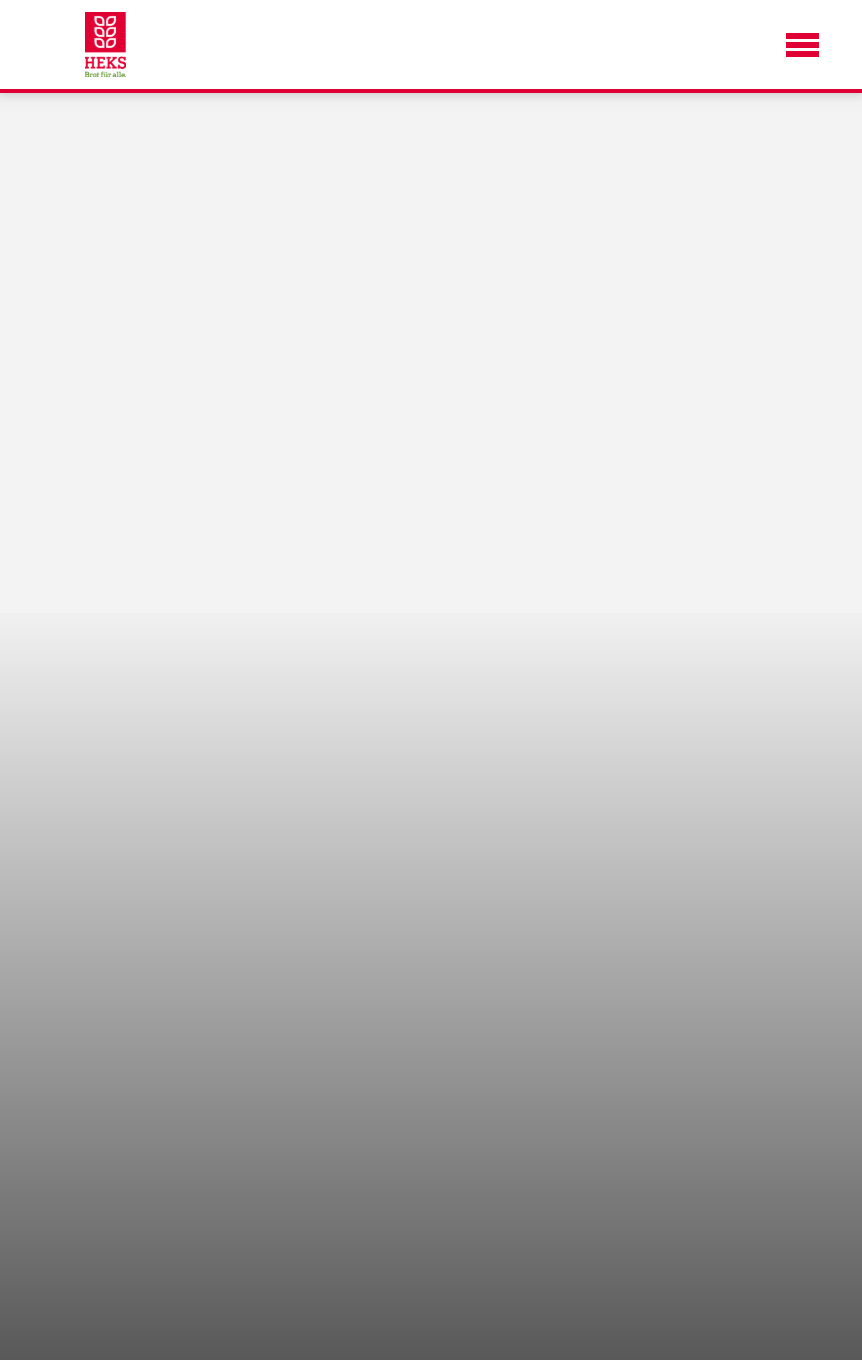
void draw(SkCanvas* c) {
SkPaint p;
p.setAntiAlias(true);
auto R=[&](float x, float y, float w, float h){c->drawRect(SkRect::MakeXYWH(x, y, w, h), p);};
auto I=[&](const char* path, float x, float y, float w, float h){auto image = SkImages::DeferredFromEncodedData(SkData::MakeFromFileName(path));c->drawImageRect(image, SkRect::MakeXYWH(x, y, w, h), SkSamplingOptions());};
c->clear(0xfff3f3f3);
p.setColor(0x29000000);
p.setMaskFilter(SkMaskFilter::MakeBlur(kNormal_SkBlurStyle, 5));
c->drawRect(SkRect::MakeXYWH(-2,-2,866,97),p);
p.setMaskFilter(nullptr);
p.setColor(0xffffffff);
R(0,0,862,89);
p.setColor(0xffe00234);
R(0,89,862,4);
I("1.png",85,12,41,65);
R(786,33,33,6);
R(786,42,33,6);
R(786,51,33,6);
{
const SkColor colors[] = {0xfff2f2f2,0xff555555};
const float stops[] = {0,1};
const SkPoint ends[] = {{431,606}, {431,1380}};
p.setShader(SkGradientShader::MakeLinear(ends, colors, stops, 2, SkTileMode::kClamp));
p.setAlpha(255);
}
R(0,613,862,747);
}
